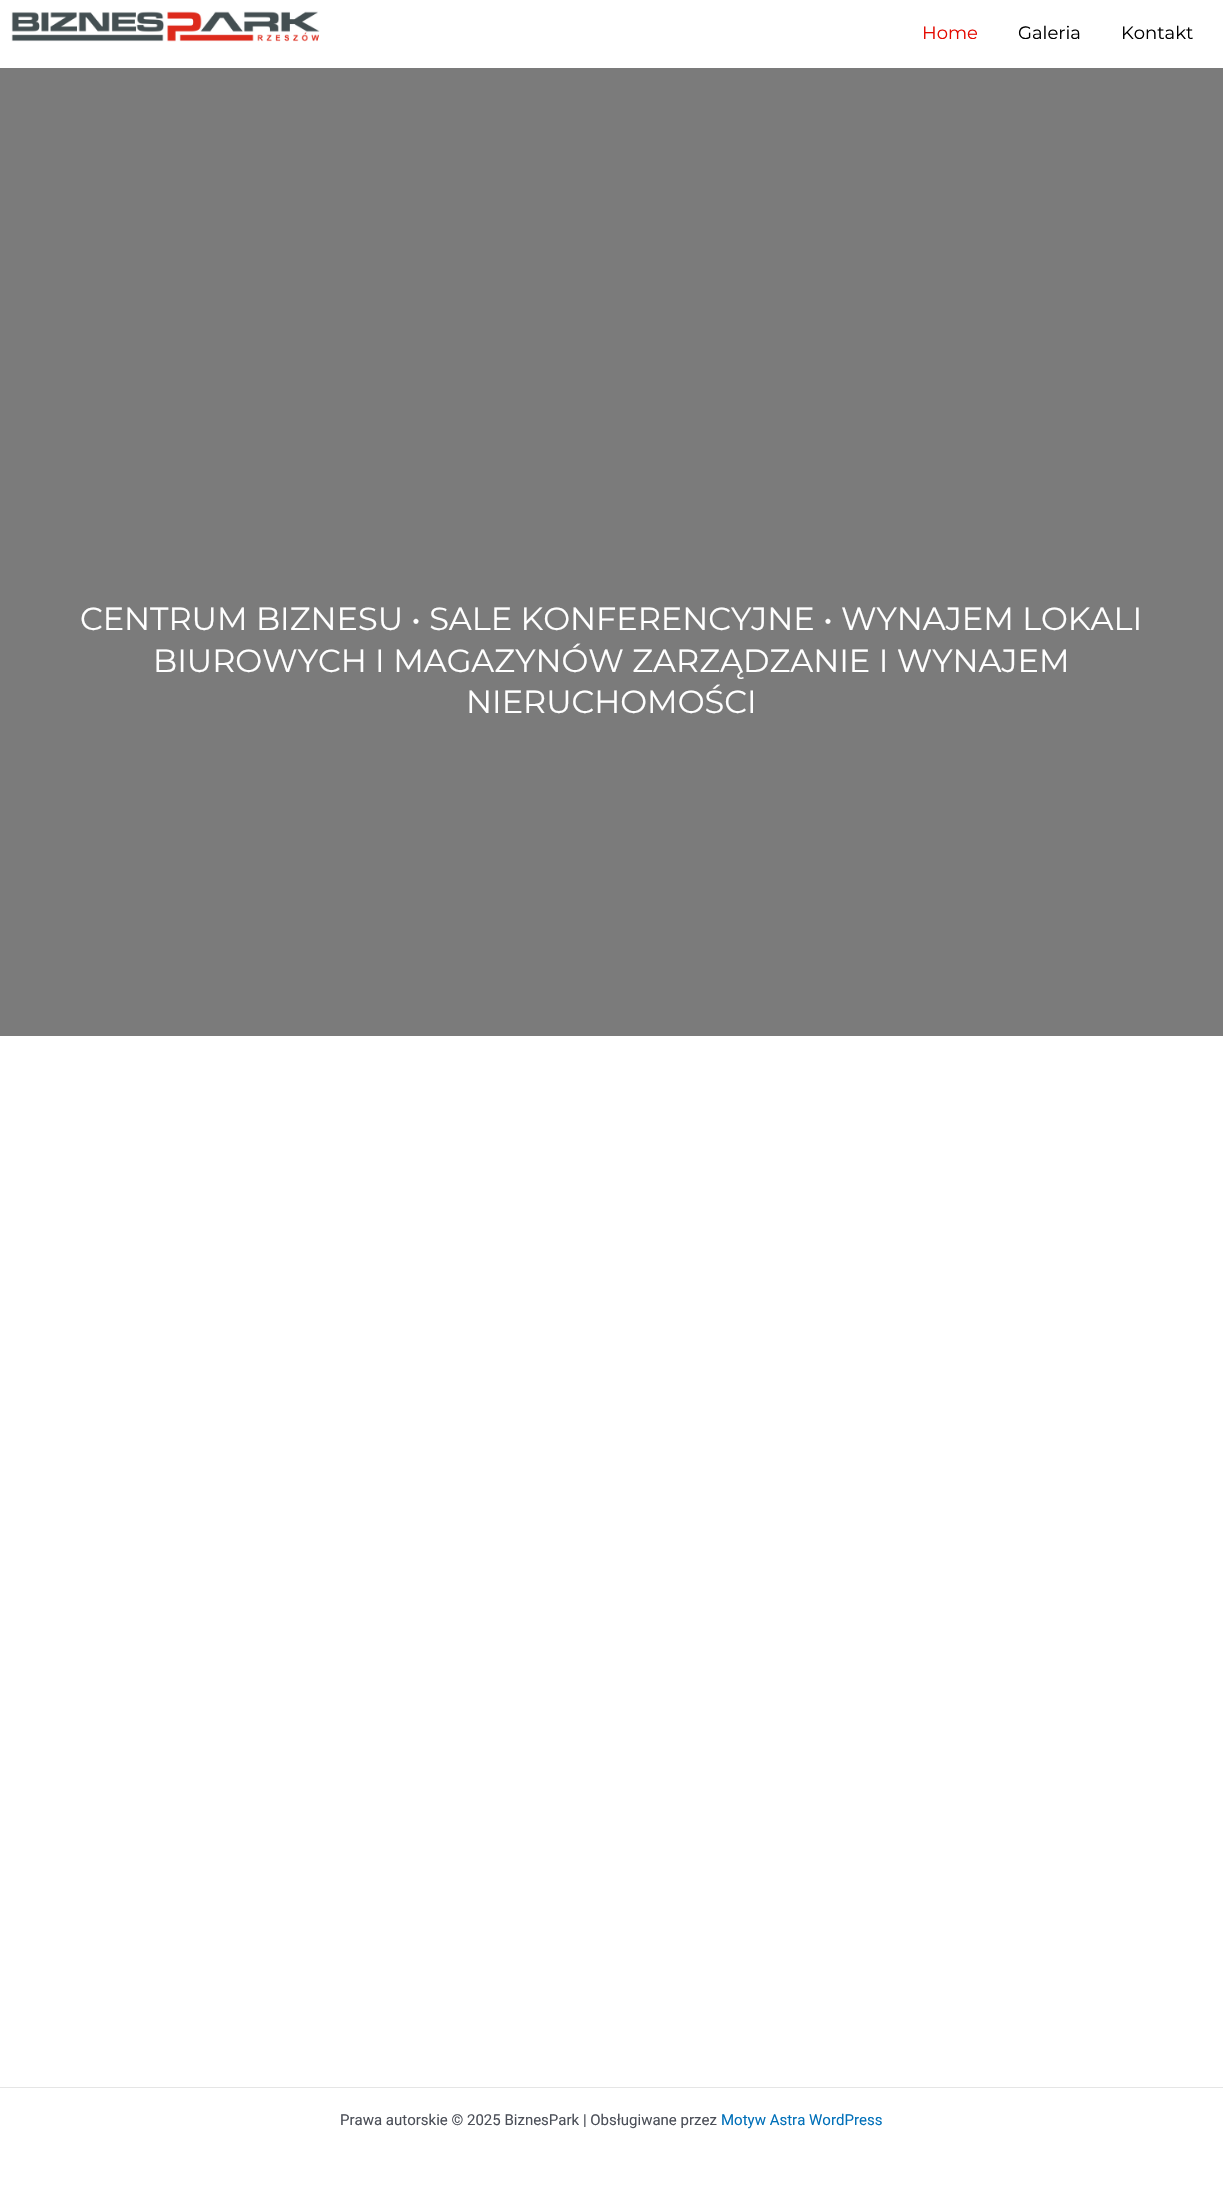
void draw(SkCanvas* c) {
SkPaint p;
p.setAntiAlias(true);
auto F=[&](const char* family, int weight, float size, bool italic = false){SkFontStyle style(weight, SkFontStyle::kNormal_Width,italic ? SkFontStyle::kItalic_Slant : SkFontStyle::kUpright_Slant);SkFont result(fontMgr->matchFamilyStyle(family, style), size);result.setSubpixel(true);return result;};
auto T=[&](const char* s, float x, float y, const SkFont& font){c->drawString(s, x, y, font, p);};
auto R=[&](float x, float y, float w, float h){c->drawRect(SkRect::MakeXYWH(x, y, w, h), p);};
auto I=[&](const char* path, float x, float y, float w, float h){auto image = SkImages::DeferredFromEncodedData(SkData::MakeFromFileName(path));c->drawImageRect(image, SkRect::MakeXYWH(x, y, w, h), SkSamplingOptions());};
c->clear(0xffffffff);
I("1.png",11,11,309,31);
auto f1 = F("Montserrat",400,18);
p.setColor(0xffe40900);
T("Home",922,39,f1);
p.setColor(0xff000000);
T("Galeria",1018,39,f1);
T("Kontakt",1121,39,f1);
p.setColor(0xff7b7b7b);
R(0,68,1223,968);
auto f2 = F("Montserrat",400,32);
p.setColor(0xffffffff);
T("CENTRUM BIZNESU • SALE KONFERENCYJNE • WYNAJEM LOKALI",80,630,f2);
T("BIUROWYCH I MAGAZYNÓW ZARZĄDZANIE I WYNAJEM",153,672,f2);
T("NIERUCHOMOŚCI",466,713,f2);
p.setColor(0xffe5e5e5);
R(0,2087,1223,1);
auto f3 = F("Roboto",400,15);
p.setColor(0xff4b4f58);
T("Prawa autorskie © 2025 BiznesPark | Obsługiwane przez",340,2125,f3);
p.setColor(0xff0170b9);
T("Motyw Astra WordPress",721,2125,f3);
}
